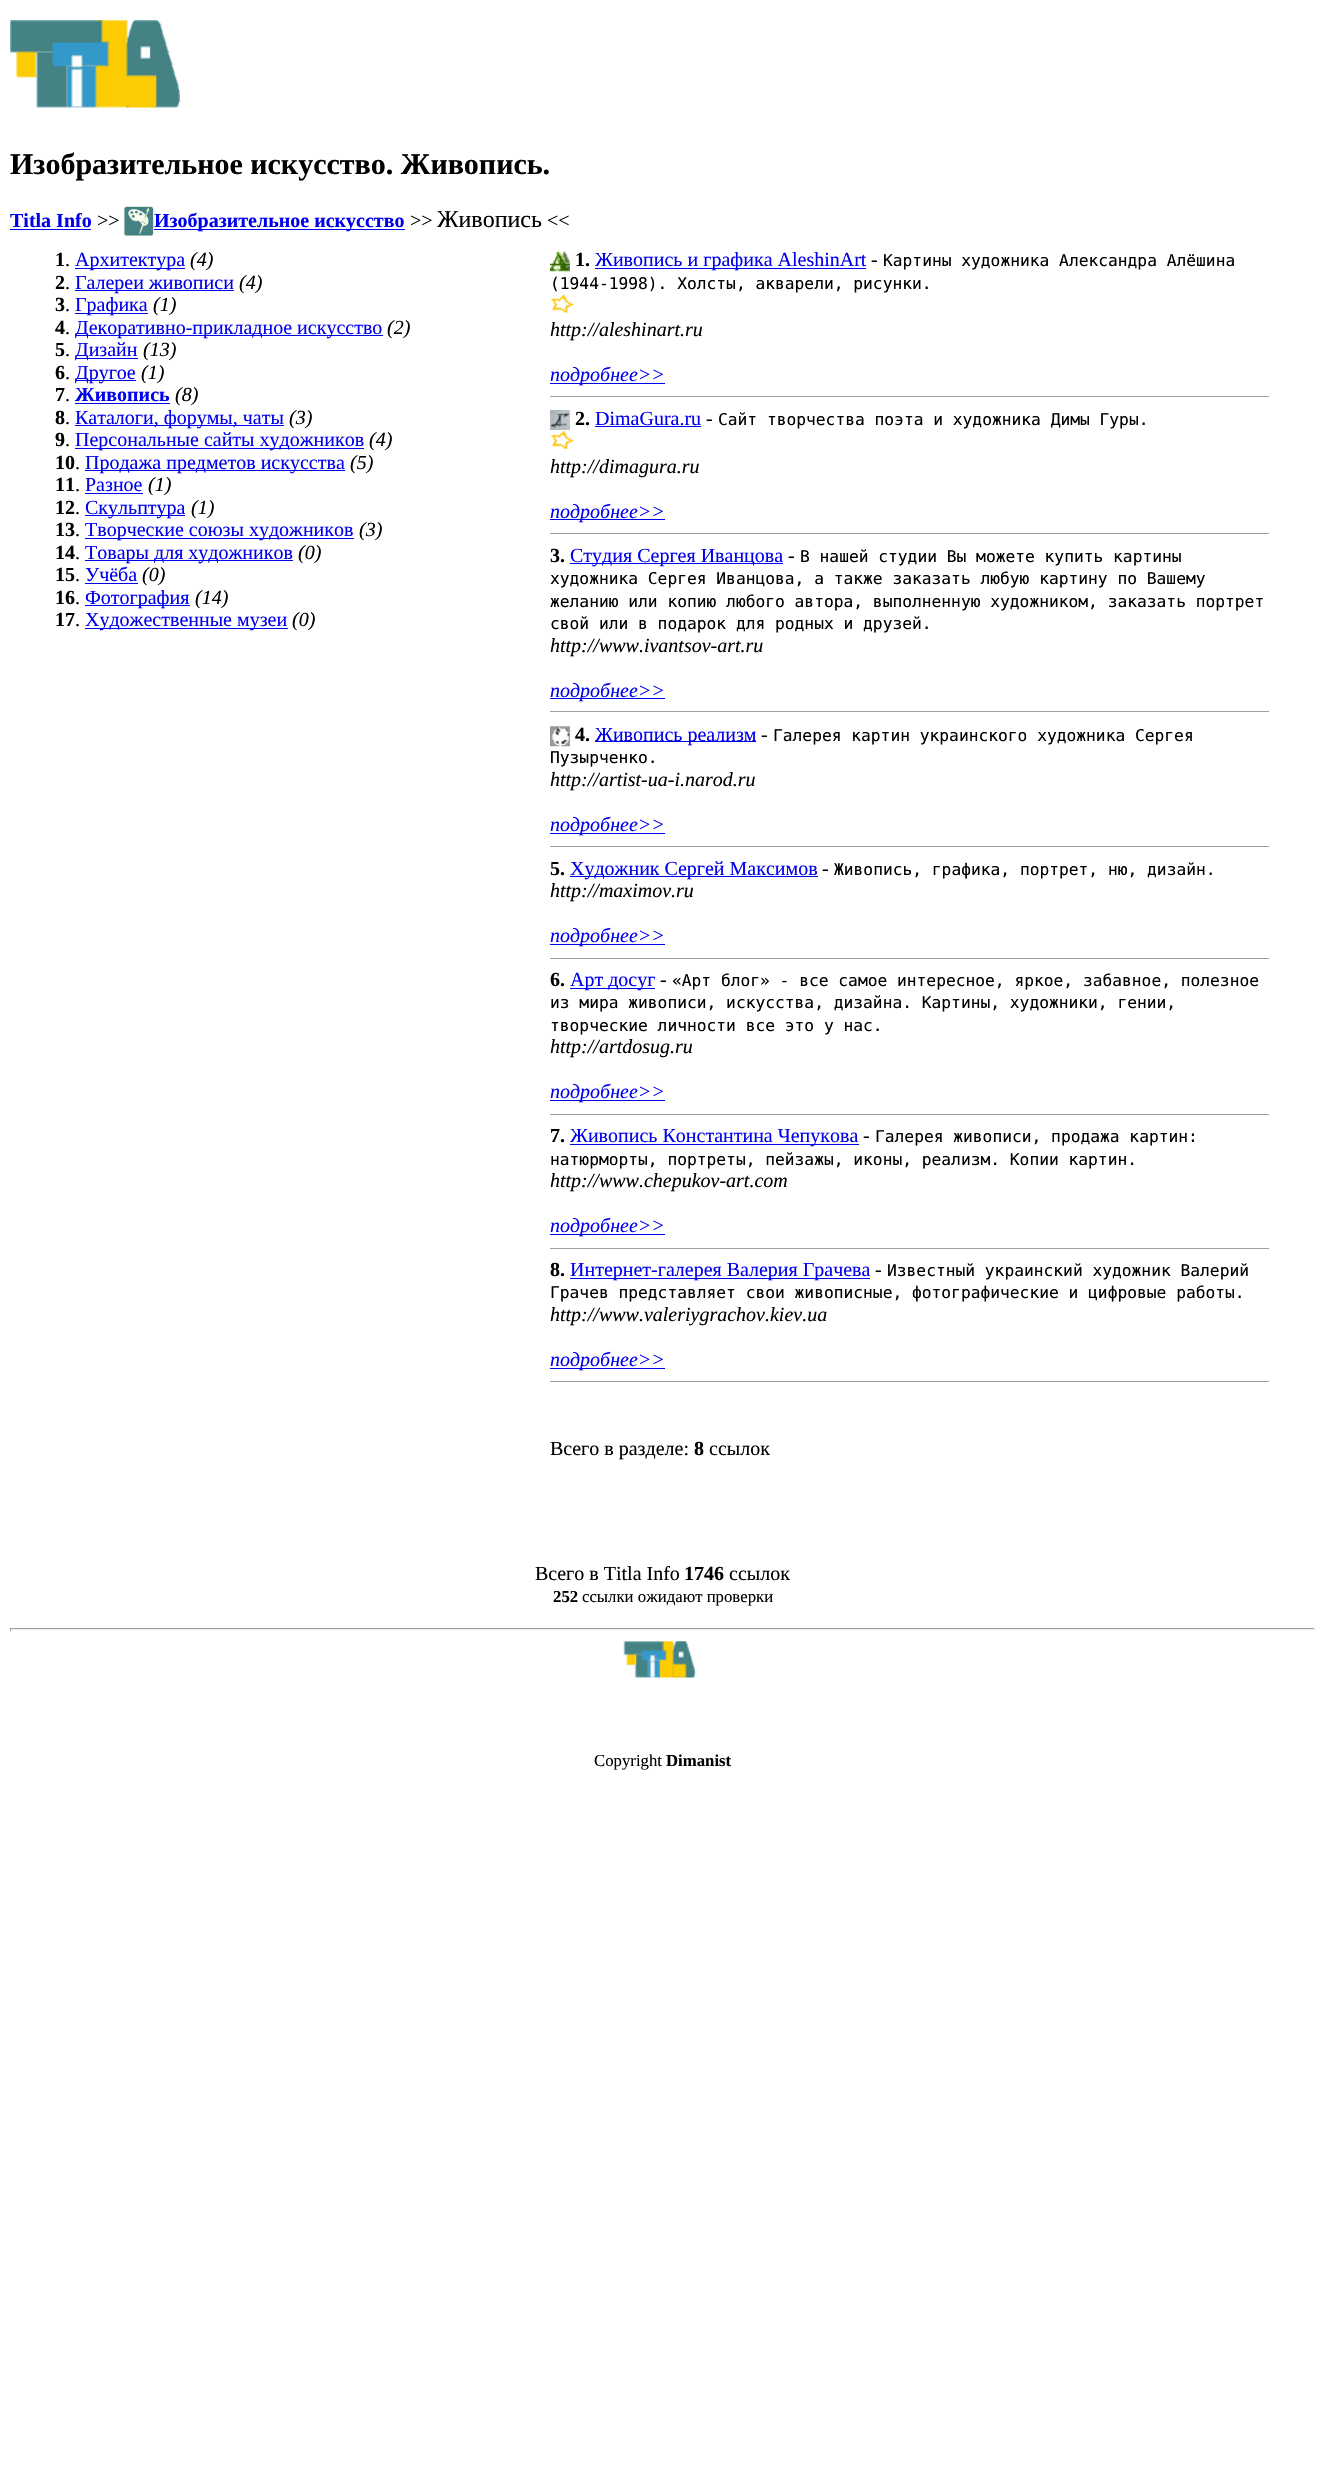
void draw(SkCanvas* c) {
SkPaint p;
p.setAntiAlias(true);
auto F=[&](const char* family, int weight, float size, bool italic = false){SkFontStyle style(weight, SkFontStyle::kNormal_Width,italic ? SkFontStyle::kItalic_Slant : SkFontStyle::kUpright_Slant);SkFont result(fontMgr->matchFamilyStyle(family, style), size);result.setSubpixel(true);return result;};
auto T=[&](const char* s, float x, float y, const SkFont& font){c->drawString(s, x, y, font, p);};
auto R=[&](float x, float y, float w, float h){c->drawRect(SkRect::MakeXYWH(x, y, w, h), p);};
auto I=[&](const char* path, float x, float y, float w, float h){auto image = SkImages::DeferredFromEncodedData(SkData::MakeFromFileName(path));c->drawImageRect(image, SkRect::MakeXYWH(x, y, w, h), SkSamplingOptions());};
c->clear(0xffffffff);
I("1.png",10,20,170,88);
auto f1 = F("Liberation Serif",700,30);
p.setColor(0xff000000);
T("Изобразительное искусство. Живопись.",10,174,f1);
auto f2 = F("Liberation Serif",700,20);
p.setColor(0xff0000ee);
T("Titla Info",10,227,f2);
R(10,229,81,1);
auto f3 = F("Liberation Serif",400,20);
p.setColor(0xff000000);
T(">>",97,227,f3);
I("2.png",123,206,31,31);
p.setColor(0xff0000ee);
R(154,229,251,1);
T("Изобразительное искусство",154,227,f2);
p.setColor(0xff000000);
T(">>",410,227,f3);
auto f4 = F("Liberation Serif",400,24);
T("Живопись",437,227,f4);
T("<<",547,227,f3);
T("1",55,266,f2);
T(".",65,266,f3);
p.setColor(0xff0000ee);
R(75,268,110,1);
T("Архитектура",75,266,f3);
auto f5 = F("Liberation Serif",400,20,true);
p.setColor(0xff000000);
T("(4)",190,266,f5);
T("2",55,289,f2);
T(".",65,289,f3);
p.setColor(0xff0000ee);
R(75,290,159,1);
T("Галереи живописи",75,289,f3);
p.setColor(0xff000000);
T("(4)",239,289,f5);
T("3",55,311,f2);
T(".",65,311,f3);
p.setColor(0xff0000ee);
R(75,313,73,1);
T("Графика",75,311,f3);
p.setColor(0xff000000);
T("(1)",153,311,f5);
T("4",55,334,f2);
T(".",65,334,f3);
p.setColor(0xff0000ee);
R(75,335,308,1);
T("Декоративно-прикладное искусство",75,334,f3);
p.setColor(0xff000000);
T("(2)",387,334,f5);
T("5",55,356,f2);
T(".",65,356,f3);
p.setColor(0xff0000ee);
R(75,358,63,1);
T("Дизайн",75,356,f3);
p.setColor(0xff000000);
T("(13)",143,356,f5);
T("6",55,379,f2);
T(".",65,379,f3);
p.setColor(0xff0000ee);
R(75,380,61,1);
T("Другое",75,379,f3);
p.setColor(0xff000000);
T("(1)",141,379,f5);
T("7",55,401,f2);
T(".",65,401,f3);
p.setColor(0xff0000ee);
T("Живопись",75,401,f2);
R(75,403,95,1);
p.setColor(0xff000000);
T("(8)",175,401,f5);
T("8",55,424,f2);
T(".",65,424,f3);
p.setColor(0xff0000ee);
R(75,425,209,1);
T("Каталоги, форумы, чаты",75,424,f3);
p.setColor(0xff000000);
T("(3)",289,424,f5);
T("9",55,446,f2);
T(".",65,446,f3);
p.setColor(0xff0000ee);
R(75,448,289,1);
T("Персональные сайты художников",75,446,f3);
p.setColor(0xff000000);
T("(4)",369,446,f5);
T("10",55,469,f2);
T(".",75,469,f3);
p.setColor(0xff0000ee);
R(85,470,260,1);
T("Продажа предметов искусства",85,469,f3);
p.setColor(0xff000000);
T("(5)",350,469,f5);
T("11",55,491,f2);
T(".",75,491,f3);
p.setColor(0xff0000ee);
T("Разное",85,491,f3);
R(85,493,58,1);
p.setColor(0xff000000);
T("(1)",148,491,f5);
T("12",55,514,f2);
T(".",75,514,f3);
p.setColor(0xff0000ee);
R(85,515,100,1);
T("Скульптура",85,514,f3);
p.setColor(0xff000000);
T("(1)",191,514,f5);
T("13",55,536,f2);
T(".",75,536,f3);
p.setColor(0xff0000ee);
R(85,538,269,1);
T("Творческие союзы художников",85,536,f3);
p.setColor(0xff000000);
T("(3)",359,536,f5);
T("14",55,559,f2);
T(".",75,559,f3);
p.setColor(0xff0000ee);
R(85,560,208,1);
T("Товары для художников",85,559,f3);
p.setColor(0xff000000);
T("(0)",298,559,f5);
T("15",55,581,f2);
T(".",75,581,f3);
p.setColor(0xff0000ee);
T("Учёба",85,581,f3);
R(85,583,53,1);
p.setColor(0xff000000);
T("(0)",142,581,f5);
T("16",55,604,f2);
T(".",75,604,f3);
p.setColor(0xff0000ee);
R(85,605,105,1);
T("Фотография",85,604,f3);
p.setColor(0xff000000);
T("(14)",195,604,f5);
T("17",55,626,f2);
T(".",75,626,f3);
p.setColor(0xff0000ee);
R(85,628,203,1);
T("Художественные музеи",85,626,f3);
p.setColor(0xff000000);
T("(0)",292,626,f5);
I("3.png",550,251,20,21);
T("1.",575,266,f2);
p.setColor(0xff0000ee);
R(595,268,271,1);
T("Живопись и графика AleshinArt",595,266,f3);
p.setColor(0xff000000);
T("-",871,266,f3);
auto f6 = F("DejaVu Sans Mono",400,16.25);
T("Картины художника Александра Алёшина",883,266,f6);
T("(1944-1998). Холсты, акварели, рисунки.",550,289,f6);
I("4.png",551,294,23,19);
T("http://aleshinart.ru",550,336,f5);
p.setColor(0xff0000ee);
R(550,383,115,1);
T("подробнее>>",550,381,f5);
p.setColor(0xff9f9f9f);
R(550,396,720,1);
p.setColor(0xffeeeeee);
R(1269,396,1,1);
I("5.png",550,410,20,20);
p.setColor(0xff000000);
T("2.",575,425,f2);
p.setColor(0xff0000ee);
T("DimaGura.ru",595,425,f3);
R(595,426,106,1);
p.setColor(0xff000000);
T("-",706,425,f3);
T("Сайт творчества поэта и художника Димы Гуры.",718,425,f6);
I("6.png",551,431,23,18);
T("http://dimagura.ru",550,473,f5);
p.setColor(0xff0000ee);
R(550,519,115,1);
T("подробнее>>",550,518,f5);
p.setColor(0xff9f9f9f);
R(550,533,720,1);
p.setColor(0xffeeeeee);
R(1269,533,1,1);
p.setColor(0xff000000);
T("3.",550,562,f2);
p.setColor(0xff0000ee);
R(570,563,213,1);
T("Студия Сергея Иванцова",570,562,f3);
p.setColor(0xff000000);
T("-",788,562,f3);
T("В нашей студии Вы можете купить картины",800,562,f6);
T("художника Сергея Иванцова, а также заказать любую картину по Вашему",550,584,f6);
T("желанию или копию любого автора, выполненную художником, заказать портрет",550,607,f6);
T("свой или в подарок для родных и друзей.",550,629,f6);
T("http://www.ivantsov-art.ru",550,652,f5);
p.setColor(0xff0000ee);
R(550,698,115,1);
T("подробнее>>",550,697,f5);
p.setColor(0xff9f9f9f);
R(550,711,720,1);
p.setColor(0xffeeeeee);
R(1269,711,1,1);
I("7.png",550,726,20,21);
p.setColor(0xff000000);
T("4.",575,741,f2);
p.setColor(0xff0000ee);
R(595,741,161,1);
T("Живопись реализм",595,741,f3);
p.setColor(0xff000000);
T("-",761,741,f3);
T("Галерея картин украинского художника Сергея",773,741,f6);
T("Пузырченко.",550,763,f6);
T("http://artist-ua-i.narod.ru",550,786,f5);
p.setColor(0xff0000ee);
R(550,833,115,1);
T("подробнее>>",550,831,f5);
p.setColor(0xff9f9f9f);
R(550,846,720,1);
p.setColor(0xffeeeeee);
R(1269,846,1,1);
p.setColor(0xff000000);
T("5.",550,875,f2);
p.setColor(0xff0000ee);
R(570,876,248,1);
T("Художник Сергей Максимов",570,875,f3);
p.setColor(0xff000000);
T("-",822,875,f3);
T("Живопись, графика, портрет, ню, дизайн.",834,875,f6);
T("http://maximov.ru",550,897,f5);
p.setColor(0xff0000ee);
R(550,944,115,1);
T("подробнее>>",550,942,f5);
p.setColor(0xff9f9f9f);
R(550,958,720,1);
p.setColor(0xffeeeeee);
R(1269,958,1,1);
p.setColor(0xff000000);
T("6.",550,986,f2);
p.setColor(0xff0000ee);
R(570,988,85,1);
T("Арт досуг",570,986,f3);
p.setColor(0xff000000);
T("-",660,986,f3);
T("«Арт блог» - все самое интересное, яркое, забавное, полезное",672,986,f6);
T("из мира живописи, искусства, дизайна. Картины, художники, гении,",550,1008,f6);
T("творческие личности все это у нас.",550,1031,f6);
T("http://artdosug.ru",550,1053,f5);
p.setColor(0xff0000ee);
R(550,1100,115,1);
T("подробнее>>",550,1098,f5);
p.setColor(0xff9f9f9f);
R(550,1114,720,1);
p.setColor(0xffeeeeee);
R(1269,1114,1,1);
p.setColor(0xff000000);
T("7.",550,1142,f2);
p.setColor(0xff0000ee);
R(570,1144,289,1);
T("Живопись Константина Чепукова",570,1142,f3);
p.setColor(0xff000000);
T("-",863,1142,f3);
T("Галерея живописи, продажа картин:",875,1142,f6);
T("натюрморты, портреты, пейзажы, иконы, реализм. Копии картин.",550,1165,f6);
T("http://www.chepukov-art.com",550,1187,f5);
p.setColor(0xff0000ee);
R(550,1234,115,1);
T("подробнее>>",550,1232,f5);
p.setColor(0xff9f9f9f);
R(550,1248,720,1);
p.setColor(0xffeeeeee);
R(1269,1248,1,1);
p.setColor(0xff000000);
T("8.",550,1276,f2);
p.setColor(0xff0000ee);
R(570,1278,300,1);
T("Интернет-галерея Валерия Грачева",570,1276,f3);
p.setColor(0xff000000);
T("-",875,1276,f3);
T("Известный украинский художник Валерий",887,1276,f6);
T("Грачев представляет свои живописные, фотографические и цифровые работы.",550,1298,f6);
T("http://www.valeriygrachov.kiev.ua",550,1321,f5);
p.setColor(0xff0000ee);
R(550,1368,115,1);
T("подробнее>>",550,1366,f5);
p.setColor(0xff9f9f9f);
R(550,1381,720,1);
p.setColor(0xffeeeeee);
R(1269,1381,1,1);
p.setColor(0xff000000);
T("Всего в разделе:",550,1455,f3);
T("8",694,1455,f2);
T("ссылок",709,1455,f3);
T("Всего в Titla Info",535,1580,f3);
T("1746",684,1580,f2);
T("ссылок",729,1580,f3);
auto f7 = F("Liberation Serif",700,16.75);
T("252",553,1602,f7);
auto f8 = F("Liberation Serif",400,16.75);
T("ссылки ожидают проверки",582,1602,f8);
p.setColor(0xff9f9f9f);
R(10,1628,1305,1);
p.setColor(0xffeeeeee);
R(1314,1628,1,3);
R(10,1629,1305,1);
p.setColor(0xff9f9f9f);
R(10,1628,1,3);
I("8.png",623,1641,73,37);
p.setColor(0xff000000);
T("Copyright",594,1766,f8);
T("Dimanist",666,1766,f7);
}
